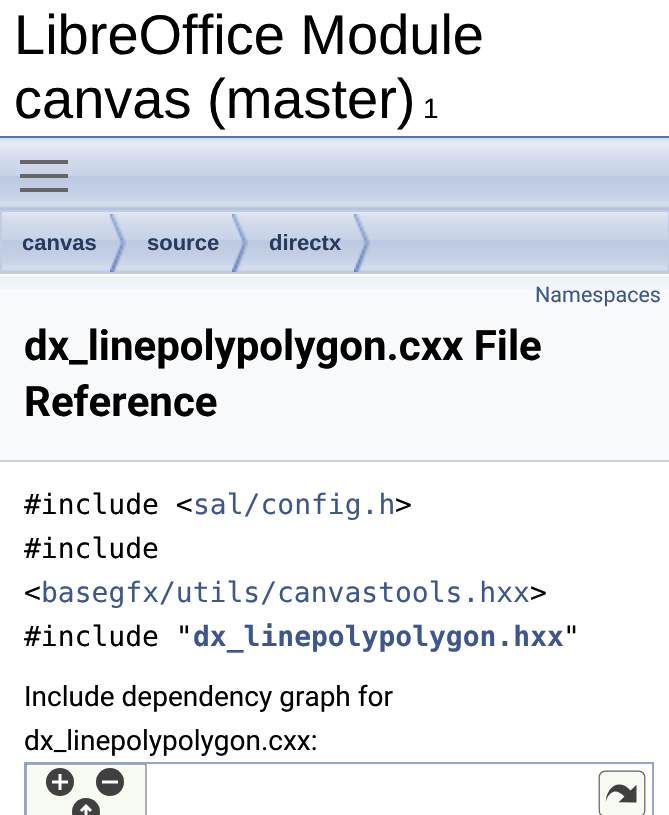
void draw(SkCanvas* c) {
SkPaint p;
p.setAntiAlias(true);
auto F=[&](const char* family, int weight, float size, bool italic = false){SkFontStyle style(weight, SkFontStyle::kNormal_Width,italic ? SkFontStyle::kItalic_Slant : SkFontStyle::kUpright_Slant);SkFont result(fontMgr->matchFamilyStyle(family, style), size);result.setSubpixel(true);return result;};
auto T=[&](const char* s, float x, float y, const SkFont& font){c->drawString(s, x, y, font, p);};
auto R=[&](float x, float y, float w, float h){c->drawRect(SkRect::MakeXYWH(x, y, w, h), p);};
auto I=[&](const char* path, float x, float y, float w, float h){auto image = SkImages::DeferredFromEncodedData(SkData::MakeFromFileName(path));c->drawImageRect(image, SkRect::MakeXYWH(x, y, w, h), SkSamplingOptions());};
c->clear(0xffffffff);
p.setColor(0xff5373b4);
R(0,136,669,2);
auto f1 = F("Liberation Sans",400,56);
p.setColor(0xff000000);
T("LibreOffice Module",14,54,f1);
T("canvas (master)",14,118,f1);
auto f2 = F("Liberation Sans",400,28);
T("1",423,118,f2);
I("1.png",0,138,669,72);
p.setColor(0xff666666);
R(20,174,48,4);
R(20,160,48,4);
R(20,188,48,4);
I("2.png",2,212,666,60);
p.setStroke(true);
p.setStrokeWidth(2);
p.setColor(0xffc2cde4);
c->drawRect(SkRect::MakeXYWH(1,211,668,62),p);
I("3.png",110,214,16,58);
auto f3 = F("Liberation Sans",700,22);
p.setStroke(false);
p.setColor(0xff283a5d);
T("canvas",22,250,f3);
I("3.png",232,214,16,58);
T("source",147,250,f3);
I("3.png",354,214,16,58);
T("directx",269,250,f3);
p.setColor(0xfff9fafc);
R(0,290,669,170);
I("4.png",0,274,669,16);
p.setColor(0xffc4cfe5);
R(0,460,669,2);
auto f4 = F("Roboto",400,21.5);
p.setColor(0xff3d578c);
T("Namespaces",535,302,f4);
auto f5 = F("Roboto",700,42);
p.setColor(0xff000000);
T("dx_linepolypolygon.cxx File",24,360,f5);
T("Reference",24,416,f5);
auto f6 = F("DejaVu Sans Mono",400,28);
T("#include <",24,514,f6);
p.setColor(0xff3d578c);
T("sal/config.h",193,514,f6);
p.setColor(0xff000000);
T(">",395,514,f6);
T("#include",24,558,f6);
T("<",24,602,f6);
p.setColor(0xff3d578c);
T("basegfx/utils/canvastools.hxx",41,602,f6);
p.setColor(0xff000000);
T(">",530,602,f6);
T("#include \"",24,646,f6);
auto f7 = F("DejaVu Sans Mono",700,28);
p.setColor(0xff3d578c);
T("dx_linepolypolygon.hxx",193,646,f7);
p.setColor(0xff000000);
T("\"",563,646,f6);
auto f8 = F("Roboto",400,28);
T("Include dependency graph for",24,706,f8);
T("dx_linepolypolygon.cxx:",24,750,f8);
p.setStroke(true);
p.setColor(0xff90a5ce);
c->drawRect(SkRect::MakeXYWH(25,763,628,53),p);
I("5.png",26,764,620,51);
}
